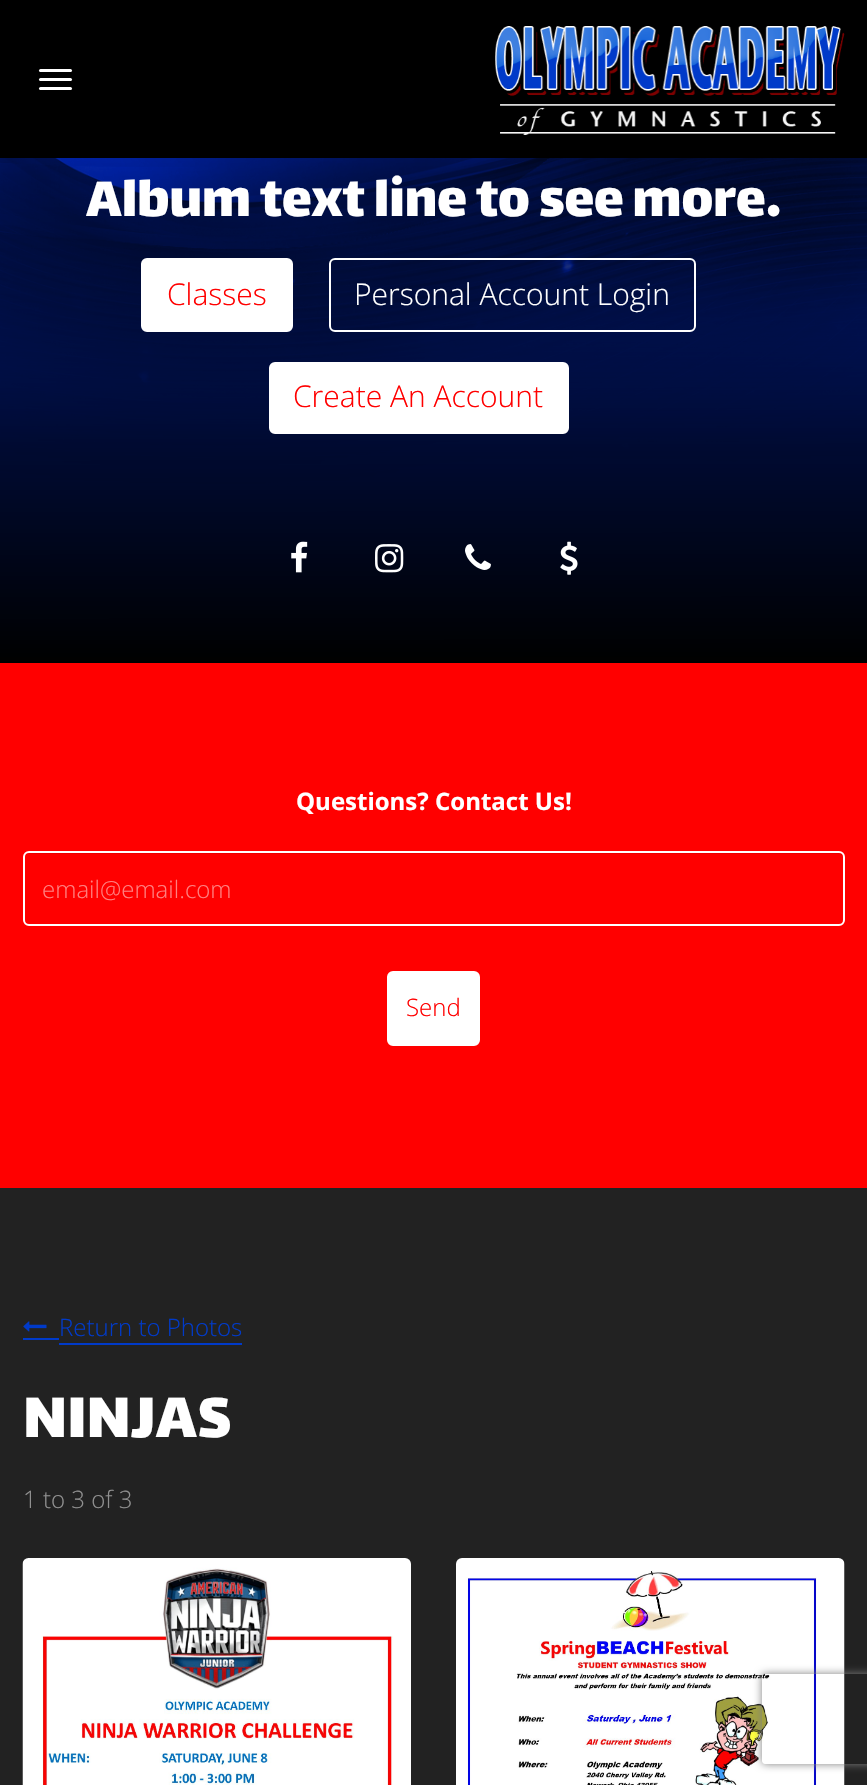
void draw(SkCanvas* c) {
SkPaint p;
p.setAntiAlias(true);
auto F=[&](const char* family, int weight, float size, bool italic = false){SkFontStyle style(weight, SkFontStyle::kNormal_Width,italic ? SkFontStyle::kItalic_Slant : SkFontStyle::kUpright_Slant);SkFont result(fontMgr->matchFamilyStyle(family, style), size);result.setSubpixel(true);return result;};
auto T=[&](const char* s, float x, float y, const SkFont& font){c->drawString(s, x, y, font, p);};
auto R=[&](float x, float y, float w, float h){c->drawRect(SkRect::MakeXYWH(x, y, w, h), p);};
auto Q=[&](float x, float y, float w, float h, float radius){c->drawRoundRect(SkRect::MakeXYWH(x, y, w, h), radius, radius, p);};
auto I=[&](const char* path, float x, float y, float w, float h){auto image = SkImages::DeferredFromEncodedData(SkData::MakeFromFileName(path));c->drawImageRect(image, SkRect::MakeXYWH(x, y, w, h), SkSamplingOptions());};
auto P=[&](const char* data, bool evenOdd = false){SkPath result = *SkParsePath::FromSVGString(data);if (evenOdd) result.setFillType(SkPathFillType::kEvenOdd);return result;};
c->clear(0xff222222);
p.setColor(0xff000000);
R(0,0,867,158);
p.setColor(0xffffffff);
Q(39,69,33,3,1.5);
Q(39,78,33,3,1.5);
Q(39,87,33,3,1.5);
I("1.png",495,26,350,109);
I("2.png",0,158,867,499);
{
const SkColor colors[] = {0x00000000,0xcc000000,0xff000000};
const float stops[] = {.22,.77,1};
const SkPoint ends[] = {{433,-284}, {434,663}};
p.setShader(SkGradientShader::MakeLinear(ends, colors, stops, 3, SkTileMode::kClamp));
p.setAlpha(255);
}
R(0,158,867,505);
auto f1 = F("Lalezar",400,60);
p.setShader(nullptr);
p.setColor(0xffffffff);
T("Album text line to see more.",86,216,f1);
c->drawRoundRect(SkRect::MakeXYWH(142,259,150,72),5,5,p);
p.setStroke(true);
p.setStrokeWidth(2);
c->drawRoundRect(SkRect::MakeXYWH(142,259,150,72),5,5,p);
auto f2 = F("Open Sans",300,30);
p.setStroke(false);
p.setColor(0xffff0000);
T("Classes",167,305,f2);
p.setStroke(true);
p.setColor(0xffffffff);
c->drawRoundRect(SkRect::MakeXYWH(330,259,365,72),5,5,p);
p.setStroke(false);
T("Personal Account Login",354,305,f2);
c->drawRoundRect(SkRect::MakeXYWH(270,363,298,70),5,5,p);
p.setStroke(true);
c->drawRoundRect(SkRect::MakeXYWH(270,363,298,70),5,5,p);
p.setStroke(false);
p.setColor(0xffff0000);
T("Create An Account",293,407,f2);
I("3.png",291,541,17,32);
I("4.png",375,544,29,29);
I("5.png",465,544,26,26);
I("6.png",560,541,18,34);
R(0,663,867,525);
auto f3 = F("Open Sans",700,24);
p.setColor(0xffffffff);
T("Questions? Contact Us!",296,810,f3);
p.setColor(0xffec0000);
c->drawPath(P("M28 854h810c3 0 5 2 5 4v-1c0-3-2-5-5-5h-809c-3 0-5 2-5 5v1c0-2 2-4 4-4z"),p);
p.setStroke(true);
p.setColor(0xffffffff);
c->drawRoundRect(SkRect::MakeXYWH(24,852,820,73),5,5,p);
auto f4 = F("Open Sans",300,24);
p.setStroke(false);
p.setColor(0xffff8080);
T("email@email.com",42,898,f4);
p.setColor(0xffffffff);
c->drawRoundRect(SkRect::MakeXYWH(388,972,91,73),5,5,p);
p.setStroke(true);
c->drawRoundRect(SkRect::MakeXYWH(388,972,91,73),5,5,p);
p.setStroke(false);
p.setColor(0xffff0000);
T("Send",406,1016,f4);
I("7.png",23,1321,24,11);
p.setColor(0xff003ac9);
T("Return to Photos",59,1336,f4);
R(23,1338,36,2);
R(59,1343,183,2);
auto f5 = F("Lalezar",400,69);
p.setColor(0xffffffff);
T("NINJAS",23,1437,f5);
p.setColor(0xff909090);
T("1 to 3 of 3",23,1508,f4);
I("8.png",22,1558,389,227);
I("9.png",456,1558,389,227);
c->save();
c->clipPath(P("M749 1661h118v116h-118zm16 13h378c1.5 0 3 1.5 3 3v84c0 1.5-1.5 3-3 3h-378c-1.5 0-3-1.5-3-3v-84c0-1.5 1.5-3 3-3z",true),true);
p.setColor(0xff808080);
p.setMaskFilter(SkMaskFilter::MakeBlur(kNormal_SkBlurStyle, 4));
c->drawRoundRect(SkRect::MakeXYWH(762,1674,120,90),3,3,p);
p.setMaskFilter(nullptr);
c->restore();
}
